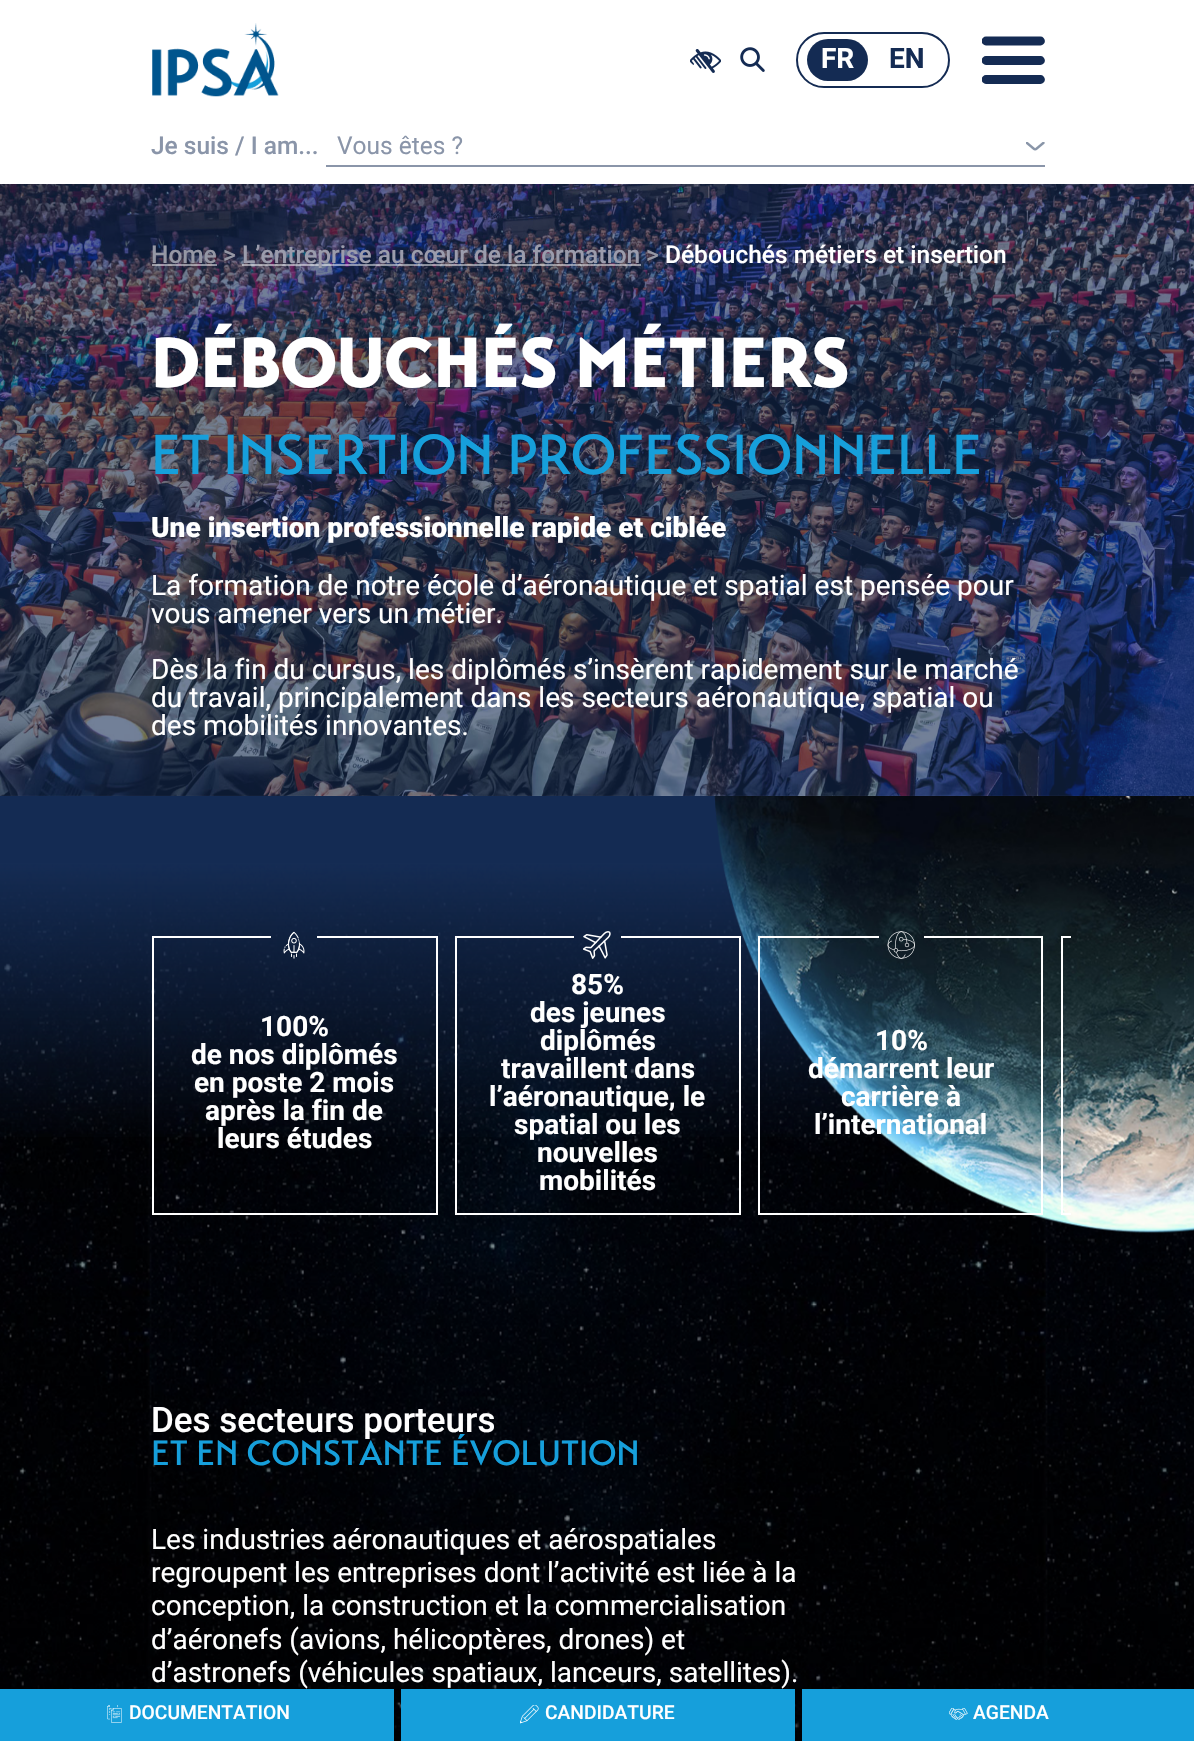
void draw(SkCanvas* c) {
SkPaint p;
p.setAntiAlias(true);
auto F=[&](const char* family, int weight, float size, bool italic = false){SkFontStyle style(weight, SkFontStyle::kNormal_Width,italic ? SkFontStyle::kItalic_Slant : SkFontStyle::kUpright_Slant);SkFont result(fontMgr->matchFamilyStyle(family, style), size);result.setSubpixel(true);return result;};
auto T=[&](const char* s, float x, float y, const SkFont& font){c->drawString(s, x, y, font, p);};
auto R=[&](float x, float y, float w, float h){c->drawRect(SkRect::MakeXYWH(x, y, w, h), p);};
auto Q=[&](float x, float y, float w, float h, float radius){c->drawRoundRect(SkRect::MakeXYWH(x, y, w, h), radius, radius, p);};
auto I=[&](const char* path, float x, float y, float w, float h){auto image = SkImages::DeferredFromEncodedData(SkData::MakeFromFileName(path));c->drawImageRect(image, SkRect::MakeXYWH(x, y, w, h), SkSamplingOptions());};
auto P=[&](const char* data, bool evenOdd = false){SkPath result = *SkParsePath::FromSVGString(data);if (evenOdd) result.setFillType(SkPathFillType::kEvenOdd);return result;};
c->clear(0xffffffff);
I("1.png",152,23,127,74);
I("2.png",690,49,31,24);
I("3.png",740,47,25,25);
p.setStroke(true);
p.setStrokeWidth(2);
p.setColor(0xff142b53);
c->drawRoundRect(SkRect::MakeXYWH(797,33,152,54),27,27,p);
p.setStroke(false);
Q(807,39,61,42,21);
auto f1 = F("Roboto",700,28);
p.setColor(0xffffffff);
T("FR",821,68,f1);
p.setColor(0xff142b53);
T("EN",889,68,f1);
c->save();
c->clipRect(SkRect::MakeXYWH(982,28,63,63));
p.setStroke(true);
p.setStrokeWidth(8.8);
p.setStrokeCap(SkPaint::kRound_Cap);
c->drawPath(P("M986 41h54.5m-54.5 19.5h54.5m-54.5 19h54.5"),p);
c->restore();
auto f2 = F("Roboto",500,24.5);
p.setStroke(false);
p.setColor(0xff8a95a9);
T("Je suis / I am...",151,154,f2);
R(326,165,719,2);
auto f3 = F("Roboto",400,24.5);
T("Vous êtes ?",337,154,f3);
I("4.png",1026,142,19,9);
p.setColor(0xff000000);
R(0,864,1194,877);
I("10.png",0,864,1194,877);
p.setColor(0xff169fdb);
R(0,1689,394,52);
I("5.png",107,1705,15,18);
auto f4 = F("Roboto",500,19.25);
p.setColor(0xffffffff);
T("DOCUMENTATION",129,1719,f4);
p.setColor(0xff169fdb);
R(401,1689,394,52);
I("6.png",520,1705,19,19);
p.setColor(0xffffffff);
T("CANDIDATURE",545,1719,f4);
p.setColor(0xff169fdb);
R(802,1689,392,52);
I("7.png",949,1708,19,12);
p.setColor(0xffffffff);
T("AGENDA",973,1719,f4);
I("8.png",0,184,1194,612);
p.setColor(0xff9597a4);
T("Home",151,263,f2);
p.setColor(0x80ffffff);
R(152,264,65,2);
p.setColor(0xff9597a4);
T(">",223,263,f2);
p.setColor(0x80ffffff);
R(242,264,399,2);
p.setColor(0xff9b9cac);
T("L’entreprise au cœur de la formation",242,263,f2);
p.setColor(0xff9597a4);
T(">",646,263,f2);
p.setColor(0xffffffff);
T("Débouchés métiers et insertion",665,263,f2);
auto f5 = F("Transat",900,70);
T("DÉBOUCHÉS MÉTIERS",151,387,f5);
auto f6 = F("Transat",500,56);
p.setColor(0xff169fdb);
T("ET INSERTION PROFESSIONNELLE",151,474,f6);
auto f7 = F("Roboto",900,28);
p.setColor(0xffffffff);
T("Une insertion professionnelle rapide et ciblée",151,537,f7);
auto f8 = F("Roboto",400,28);
T("La formation de notre école d’aéronautique et spatial est pensée pour",151,595,f8);
T("vous amener vers un métier.",151,623,f8);
T("Dès la fin du cursus, les diplômés s’insèrent rapidement sur le marché",151,679,f8);
T("du travail, principalement dans les secteurs aéronautique, spatial ou",151,707,f8);
T("des mobilités innovantes.",151,735,f8);
{
const SkColor colors[] = {0xff142b53,0x00142b53};
const float stops[] = {.19,1};
const SkPoint ends[] = {{598,796}, {598,1146}};
p.setShader(SkGradientShader::MakeLinear(ends, colors, stops, 2, SkTileMode::kClamp));
p.setAlpha(255);
}
R(0,796,892,341);
I("9.png",714,796,480,437);
p.setShader(nullptr);
p.setColor(0xffffffff);
R(436,936,2,279);
R(152,1213,286,2);
R(152,936,2,279);
R(154,936,117,2);
I("11.png",283,931,22,28);
R(317,936,119,2);
T("100%",260,1036,f1);
T("de nos diplômés",191,1064,f1);
T("en poste 2 mois",194,1092,f1);
T("après la fin de",205,1120,f1);
T("leurs études",217,1148,f1);
R(739,936,2,279);
R(455,1213,285,2);
R(455,936,2,279);
R(457,936,117,2);
I("12.png",583,931,28,28);
R(621,936,118,2);
T("85%",571,994,f1);
T("des jeunes",530,1022,f1);
T("diplômés",540,1050,f1);
T("travaillent dans",501,1078,f1);
T("l’aéronautique, le",489,1106,f1);
T("spatial ou les",514,1134,f1);
T("nouvelles",537,1162,f1);
T("mobilités",539,1190,f1);
R(1041,936,2,279);
R(758,1213,285,2);
R(758,936,2,279);
R(760,936,119,2);
I("13.png",887,931,28,28);
R(924,936,117,2);
T("10%",875,1050,f1);
T("démarrent leur",808,1078,f1);
T("carrière à",841,1106,f1);
T("l’international",814,1134,f1);
R(1061,1213,10,2);
R(1061,936,2,279);
R(1062,936,9,2);
auto f9 = F("Roboto",500,35);
T("Des secteurs porteurs",151,1432,f9);
auto f10 = F("Transat",500,35);
p.setColor(0xff169fdb);
T("ET EN CONSTANTE ÉVOLUTION",151,1465,f10);
p.setColor(0xffffffff);
T("Les industries aéronautiques et aérospatiales",151,1549,f8);
T("regroupent les entreprises dont l’activité est liée à la",151,1582,f8);
T("conception, la construction et la commercialisation",151,1615,f8);
T("d’aéronefs (avions, hélicoptères, drones) et",151,1649,f8);
T("d’astronefs (véhicules spatiaux, lanceurs, satellites).",151,1682,f8);
}
